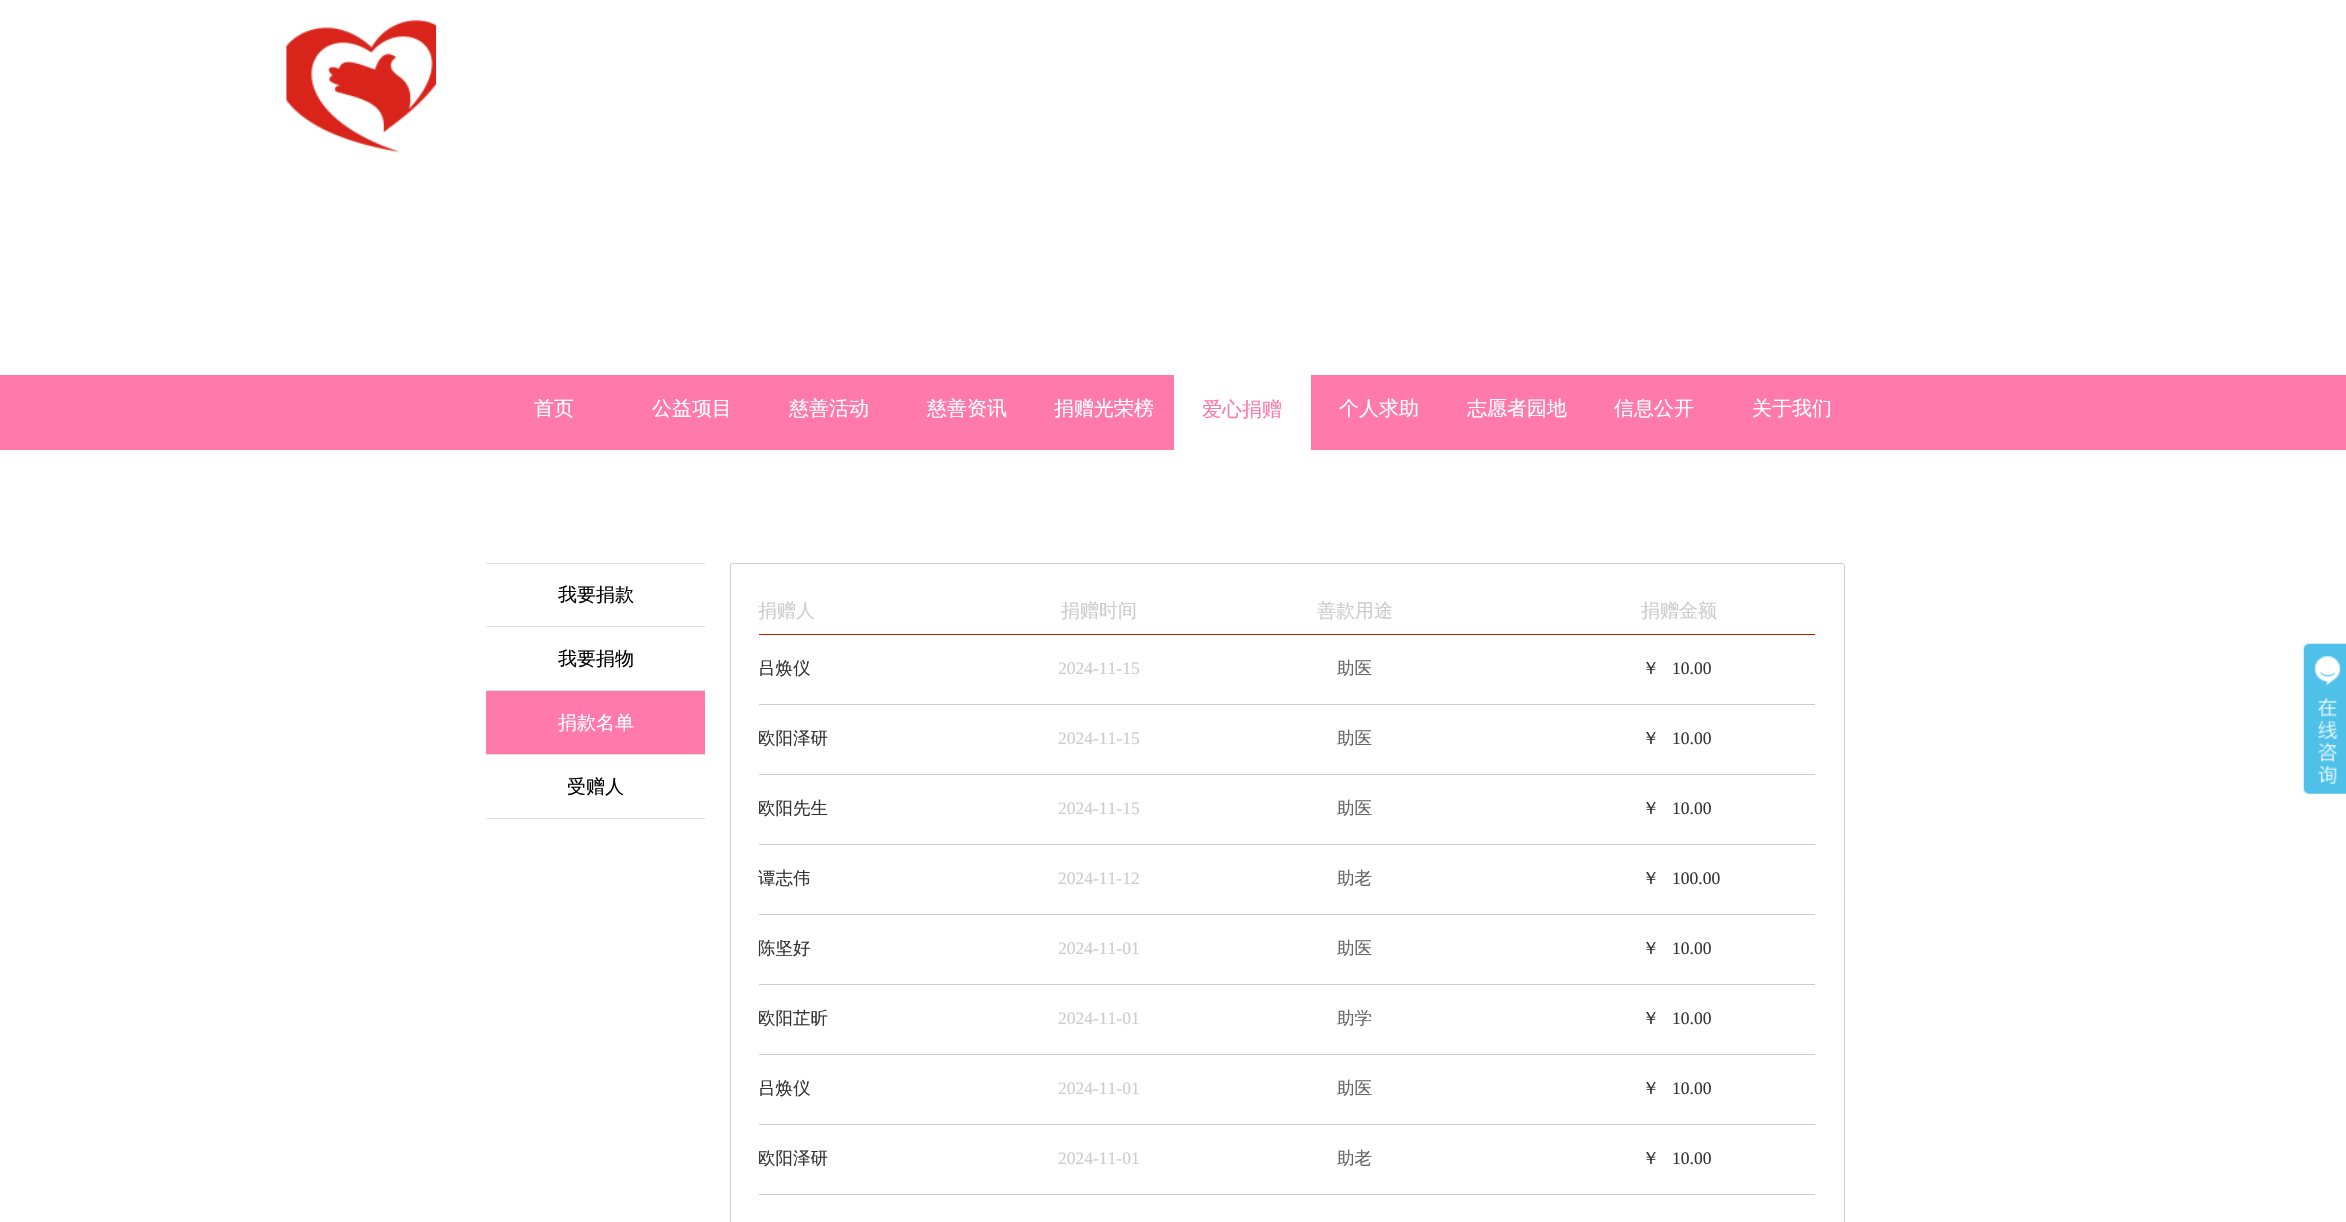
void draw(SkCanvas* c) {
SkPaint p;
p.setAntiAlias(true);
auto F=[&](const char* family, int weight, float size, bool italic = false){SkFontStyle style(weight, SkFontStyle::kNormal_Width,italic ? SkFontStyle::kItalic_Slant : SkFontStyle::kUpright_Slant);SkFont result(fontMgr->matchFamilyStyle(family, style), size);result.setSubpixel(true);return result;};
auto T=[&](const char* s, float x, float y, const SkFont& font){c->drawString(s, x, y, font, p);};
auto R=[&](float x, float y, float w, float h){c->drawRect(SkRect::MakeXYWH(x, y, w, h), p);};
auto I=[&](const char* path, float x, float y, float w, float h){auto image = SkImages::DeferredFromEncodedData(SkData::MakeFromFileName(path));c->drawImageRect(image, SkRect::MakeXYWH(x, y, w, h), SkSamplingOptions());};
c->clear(0xffffffff);
I("1.png",286,19,151,134);
p.setColor(0xffff79aa);
R(0,375,2346,75);
auto f1 = F("WenQuanYi Zen Hei",500,20);
p.setColor(0xffffffff);
T("首页",534,415,f1);
T("公益项目",652,415,f1);
T("慈善活动",789,415,f1);
T("慈善资讯",927,415,f1);
T("捐赠光荣榜",1054,415,f1);
R(1174,375,137,75);
p.setColor(0xffff79aa);
T("爱心捐赠",1202,416,f1);
p.setColor(0xffffffff);
T("个人求助",1339,415,f1);
T("志愿者园地",1467,415,f1);
T("信息公开",1614,415,f1);
T("关于我们",1752,415,f1);
p.setColor(0xffe0e0e0);
R(486,818,219,1);
R(486,563,219,1);
auto f2 = F("WenQuanYi Zen Hei",500,19);
p.setColor(0xff000000);
T("我要捐款",558,601,f2);
p.setColor(0xffe0e0e0);
R(486,626,219,1);
p.setColor(0xff000000);
T("我要捐物",558,665,f2);
p.setColor(0xffff79aa);
R(486,691,219,63);
p.setColor(0xffe0e0e0);
R(486,690,219,1);
p.setColor(0xffffffff);
T("捐款名单",558,729,f2);
p.setColor(0xffe0e0e0);
R(486,754,219,1);
p.setColor(0xff000000);
T("受赠人",567,793,f2);
p.setStroke(true);
p.setStrokeWidth(1);
p.setColor(0xffcccccc);
c->drawRoundRect(SkRect::MakeXYWH(730.5,563.5,1114,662),2,2,p);
p.setStroke(false);
p.setColor(0xffb41e06);
R(759,634,1056,1);
p.setColor(0xffcccccc);
T("捐赠人",758,617,f2);
T("捐赠时间",1061,617,f2);
T("善款用途",1317,617,f2);
T("捐赠金额",1641,617,f2);
R(759,704,1056,1);
auto f3 = F("WenQuanYi Zen Hei",500,17.5);
p.setColor(0xff333333);
T("吕焕仪",758,674,f3);
auto f4 = F("Liberation Serif",400,17.5);
p.setColor(0xffcccccc);
T("2024-11-15",1058,674,f4);
p.setColor(0xff666666);
T("助医",1337,674,f3);
p.setColor(0xff333333);
T("￥",1642,674,f3);
T("10.00",1672,674,f4);
p.setColor(0xffcccccc);
R(759,774,1056,1);
p.setColor(0xff333333);
T("欧阳泽研",758,744,f3);
p.setColor(0xffcccccc);
T("2024-11-15",1058,744,f4);
p.setColor(0xff666666);
T("助医",1337,744,f3);
p.setColor(0xff333333);
T("￥",1642,744,f3);
T("10.00",1672,744,f4);
p.setColor(0xffcccccc);
R(759,844,1056,1);
p.setColor(0xff333333);
T("欧阳先生",758,814,f3);
p.setColor(0xffcccccc);
T("2024-11-15",1058,814,f4);
p.setColor(0xff666666);
T("助医",1337,814,f3);
p.setColor(0xff333333);
T("￥",1642,814,f3);
T("10.00",1672,814,f4);
p.setColor(0xffcccccc);
R(759,914,1056,1);
p.setColor(0xff333333);
T("谭志伟",758,884,f3);
p.setColor(0xffcccccc);
T("2024-11-12",1058,884,f4);
p.setColor(0xff666666);
T("助老",1337,884,f3);
p.setColor(0xff333333);
T("￥",1642,884,f3);
T("100.00",1672,884,f4);
p.setColor(0xffcccccc);
R(759,984,1056,1);
p.setColor(0xff333333);
T("陈坚好",758,954,f3);
p.setColor(0xffcccccc);
T("2024-11-01",1058,954,f4);
p.setColor(0xff666666);
T("助医",1337,954,f3);
p.setColor(0xff333333);
T("￥",1642,954,f3);
T("10.00",1672,954,f4);
p.setColor(0xffcccccc);
R(759,1054,1056,1);
p.setColor(0xff333333);
T("欧阳芷昕",758,1024,f3);
p.setColor(0xffcccccc);
T("2024-11-01",1058,1024,f4);
p.setColor(0xff666666);
T("助学",1337,1024,f3);
p.setColor(0xff333333);
T("￥",1642,1024,f3);
T("10.00",1672,1024,f4);
p.setColor(0xffcccccc);
R(759,1124,1056,1);
p.setColor(0xff333333);
T("吕焕仪",758,1094,f3);
p.setColor(0xffcccccc);
T("2024-11-01",1058,1094,f4);
p.setColor(0xff666666);
T("助医",1337,1094,f3);
p.setColor(0xff333333);
T("￥",1642,1094,f3);
T("10.00",1672,1094,f4);
p.setColor(0xffcccccc);
R(759,1194,1056,1);
p.setColor(0xff333333);
T("欧阳泽研",758,1164,f3);
p.setColor(0xffcccccc);
T("2024-11-01",1058,1164,f4);
p.setColor(0xff666666);
T("助老",1337,1164,f3);
p.setColor(0xff333333);
T("￥",1642,1164,f3);
T("10.00",1672,1164,f4);
I("2.png",2303,643,43,151);
}
